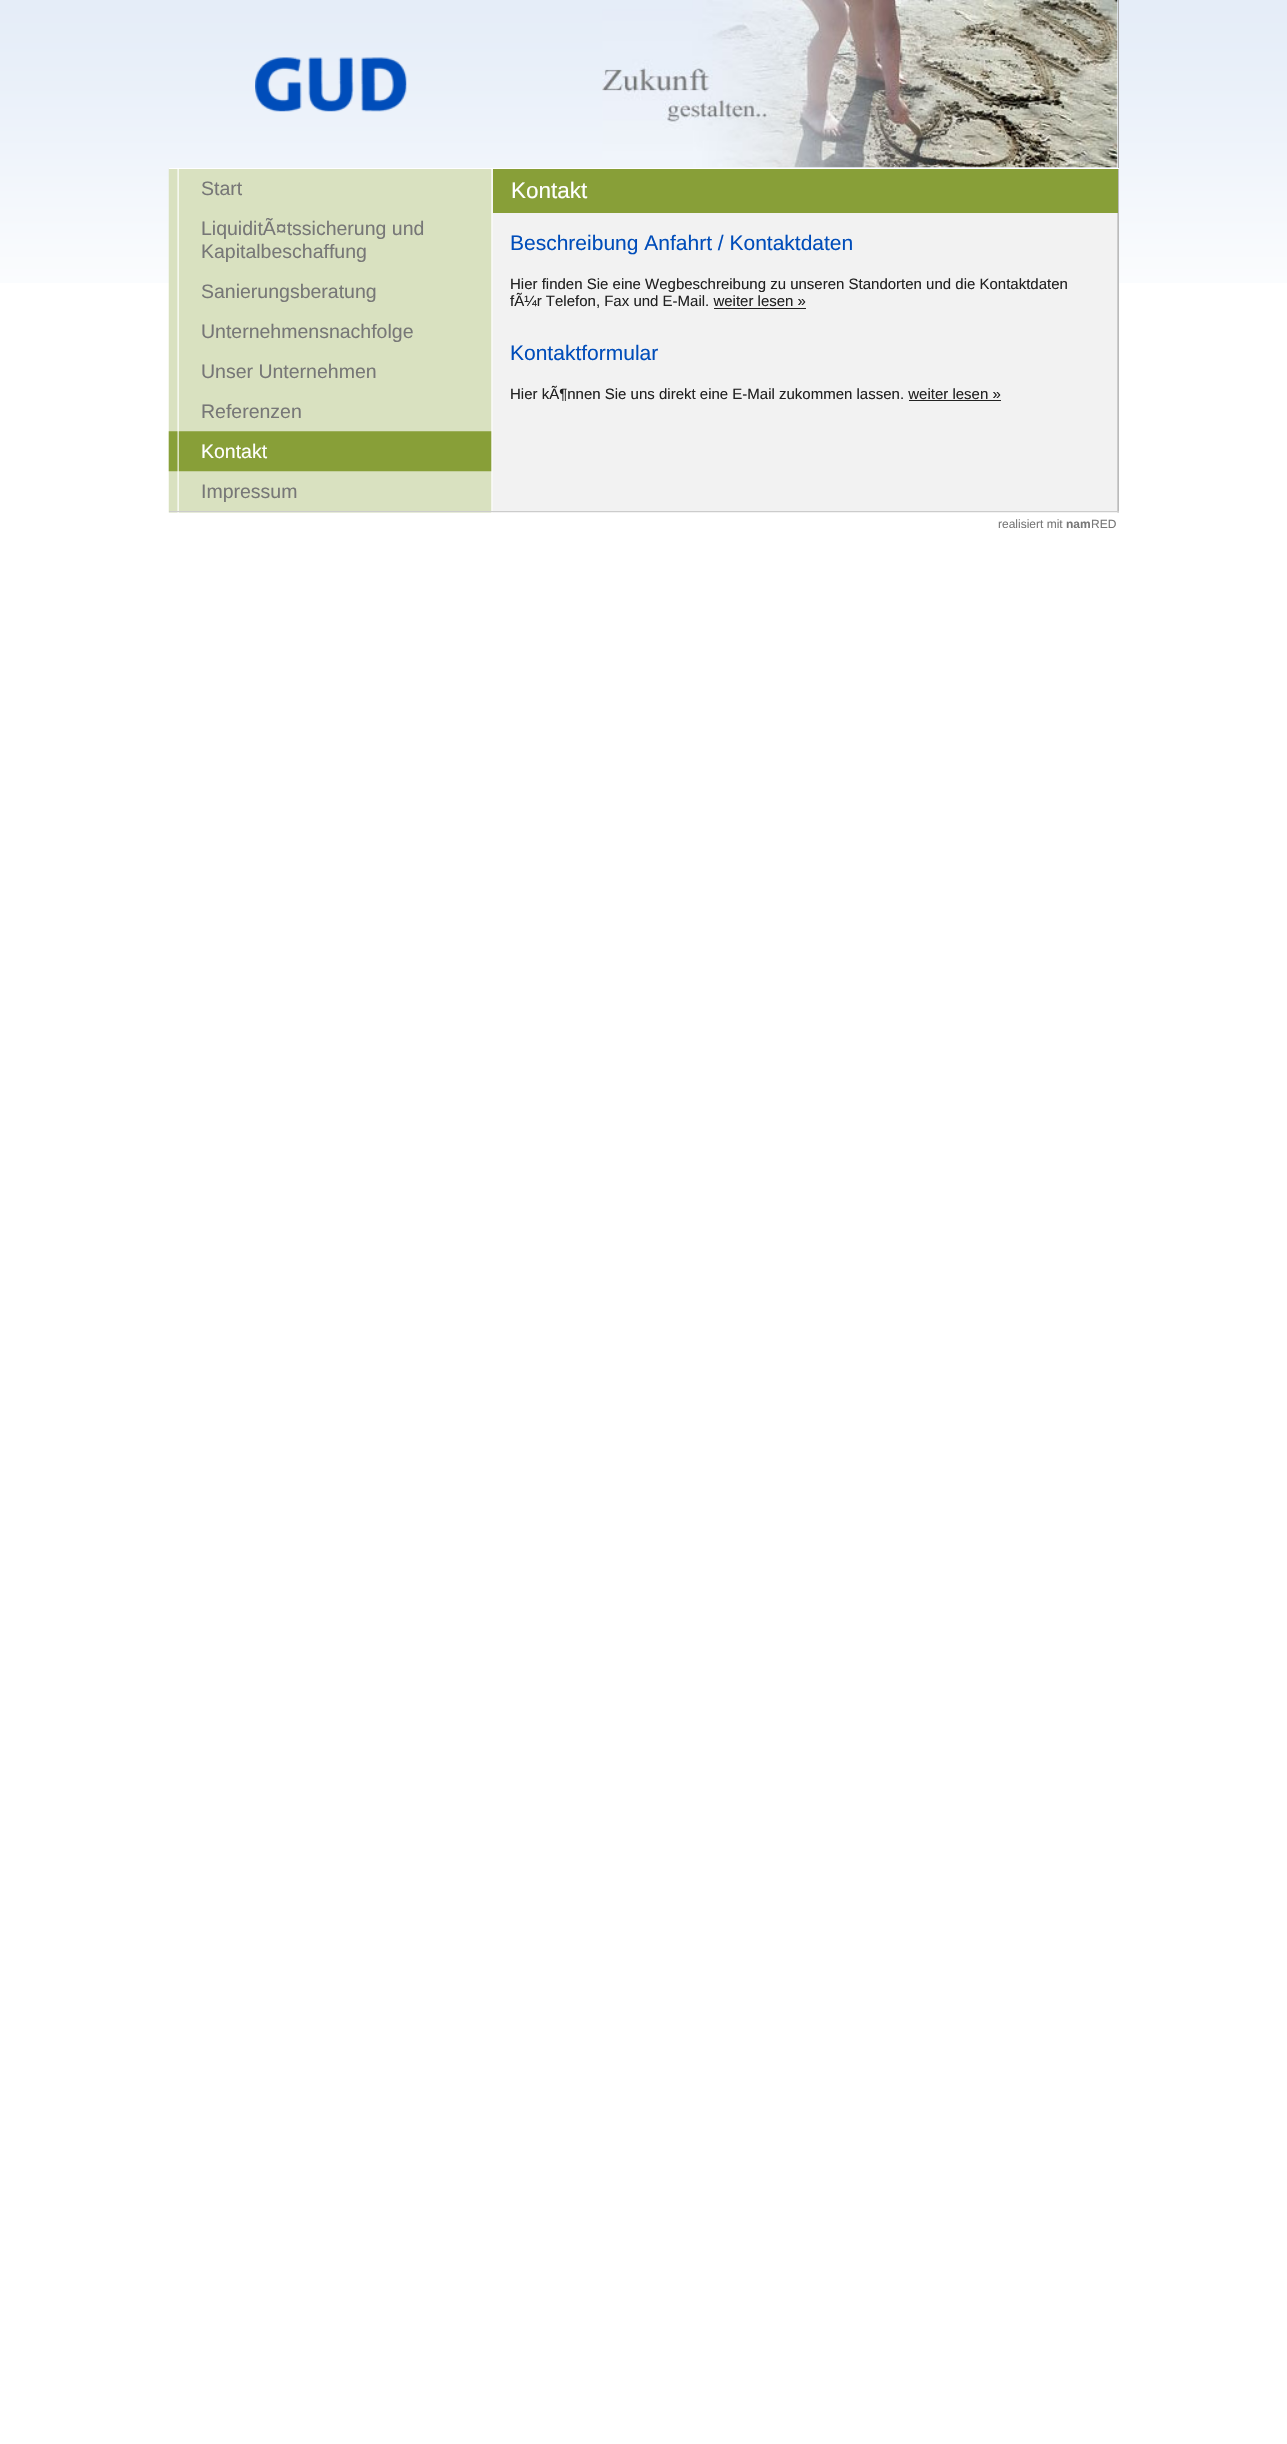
void draw(SkCanvas* c) {
SkPaint p;
p.setAntiAlias(true);
auto F=[&](const char* family, int weight, float size, bool italic = false){SkFontStyle style(weight, SkFontStyle::kNormal_Width,italic ? SkFontStyle::kItalic_Slant : SkFontStyle::kUpright_Slant);SkFont result(fontMgr->matchFamilyStyle(family, style), size);result.setSubpixel(true);return result;};
auto T=[&](const char* s, float x, float y, const SkFont& font){c->drawString(s, x, y, font, p);};
auto R=[&](float x, float y, float w, float h){c->drawRect(SkRect::MakeXYWH(x, y, w, h), p);};
auto I=[&](const char* path, float x, float y, float w, float h){auto image = SkImages::DeferredFromEncodedData(SkData::MakeFromFileName(path));c->drawImageRect(image, SkRect::MakeXYWH(x, y, w, h), SkSamplingOptions());};
c->clear(0xffffffff);
I("1.png",0,0,1287,283);
p.setColor(0xfff2f2f2);
R(169,169,950,344);
I("4.png",168,168,951,345);
p.setColor(0xffffffff);
R(169,168,950,1);
I("2.png",255,57,152,55);
p.setColor(0xffa9a9a9);
R(1118,0,1,168);
I("3.png",602,0,516,168);
p.setColor(0xffcccccc);
R(169,511,950,1);
auto f1 = F("Liberation Sans",400,19.5);
p.setColor(0xff777777);
T("Start",201,195,f1);
T("LiquiditÃ¤tssicherung und",201,235,f1);
T("Kapitalbeschaffung",201,258,f1);
T("Sanierungsberatung",201,298,f1);
T("Unternehmensnachfolge",201,338,f1);
T("Unser Unternehmen",201,378,f1);
T("Referenzen",201,418,f1);
I("5.png",168,431,324,41);
p.setColor(0xffffffff);
T("Kontakt",201,458,f1);
p.setColor(0xff777777);
T("Impressum",201,498,f1);
p.setColor(0xff889f38);
R(493,169,625,44);
auto f2 = F("Liberation Sans",400,22.5);
p.setColor(0xffffffff);
T("Kontakt",511,198,f2);
auto f3 = F("Liberation Sans",400,21);
p.setColor(0xff004dba);
T("Beschreibung Anfahrt / Kontaktdaten",510,250,f3);
auto f4 = F("Liberation Sans",400,15);
p.setColor(0xff222222);
T("Hier finden Sie eine Wegbeschreibung zu unseren Standorten und die Kontaktdaten",510,289,f4);
T("fÃ¼r Telefon, Fax und E-Mail. weiter lesen »",510,306,f4);
R(714,308,92,1);
p.setColor(0xff004dba);
T("Kontaktformular",510,360,f3);
p.setColor(0xff222222);
T("Hier kÃ¶nnen Sie uns direkt eine E-Mail zukommen lassen. weiter lesen »",510,399,f4);
R(909,400,92,1);
auto f5 = F("Liberation Sans",400,12);
p.setColor(0xff777777);
T("realisiert mit",998,528,f5);
auto f6 = F("Liberation Sans",700,12);
T("nam",1066,528,f6);
T("RED",1091,528,f5);
}
